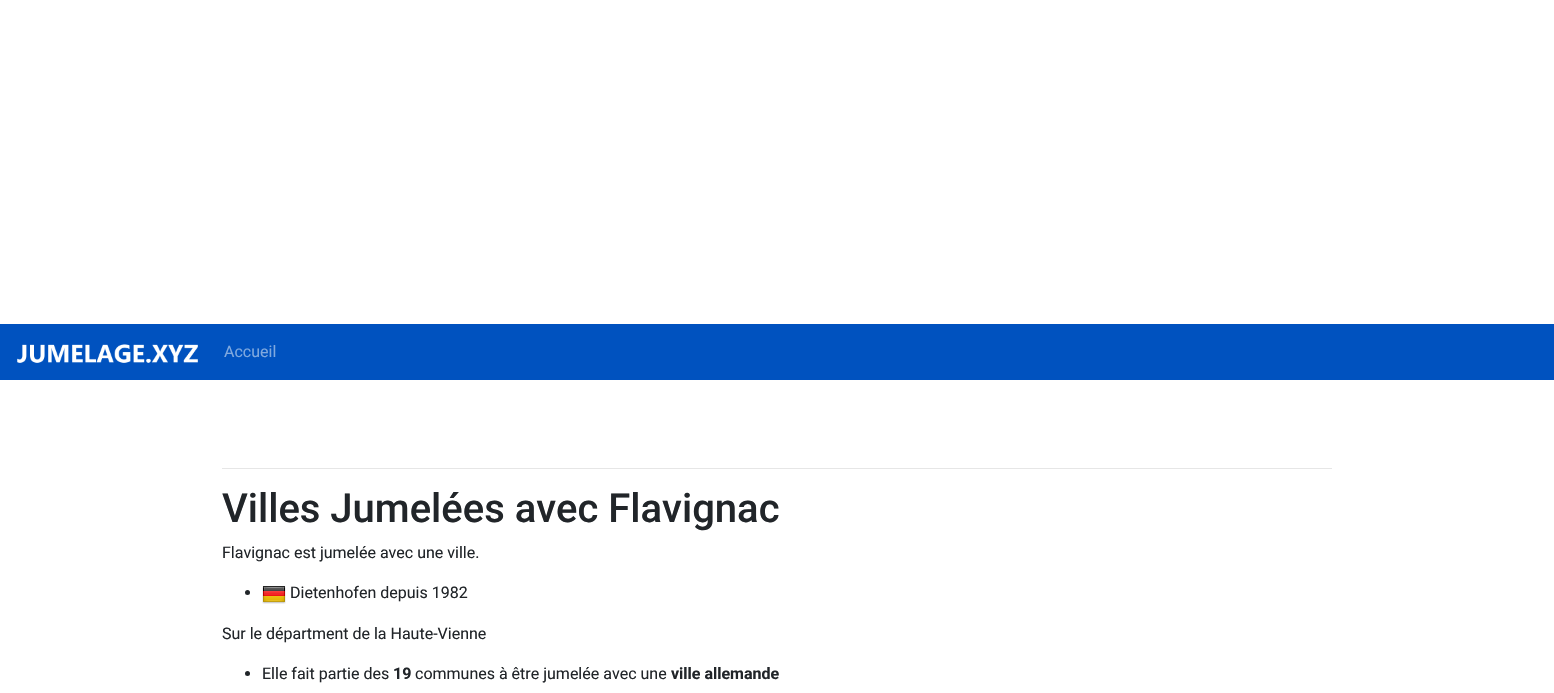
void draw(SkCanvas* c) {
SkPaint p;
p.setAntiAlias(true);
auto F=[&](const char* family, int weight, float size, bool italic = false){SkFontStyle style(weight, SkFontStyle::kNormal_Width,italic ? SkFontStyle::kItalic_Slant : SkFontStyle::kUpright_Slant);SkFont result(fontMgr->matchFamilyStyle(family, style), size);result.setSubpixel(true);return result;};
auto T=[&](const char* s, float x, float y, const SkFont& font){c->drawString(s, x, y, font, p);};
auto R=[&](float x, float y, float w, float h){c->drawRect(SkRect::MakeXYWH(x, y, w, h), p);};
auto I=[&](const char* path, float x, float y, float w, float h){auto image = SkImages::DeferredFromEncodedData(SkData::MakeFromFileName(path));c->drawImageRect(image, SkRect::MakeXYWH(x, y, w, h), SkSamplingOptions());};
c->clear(0xffffffff);
p.setColor(0xff0052bf);
R(0,324,1554,56);
I("1.png",17,344,181,19);
auto f1 = F("Roboto",400,16);
p.setColor(0xff80a9df);
T("Accueil",224,357,f1);
p.setColor(0xffe6e6e6);
R(222,468,1110,1);
auto f2 = F("Roboto",500,40);
p.setColor(0xff212529);
T("Villes Jumelées avec Flavignac",222,522,f2);
T("Flavignac est jumelée avec une ville.",222,558,f1);
c->drawCircle(247.5,592.5,2.5,p);
I("2.png",262,586,24,18);
T("Dietenhofen depuis 1982",290,598,f1);
T("Sur le départment de la Haute-Vienne",222,639,f1);
c->drawCircle(247.5,673.5,2.5,p);
T("Elle fait partie des",262,679,f1);
auto f3 = F("Roboto",700,16);
T("19",393,679,f3);
T("communes à être jumelée avec une",415,679,f1);
T("ville allemande",671,679,f3);
}
